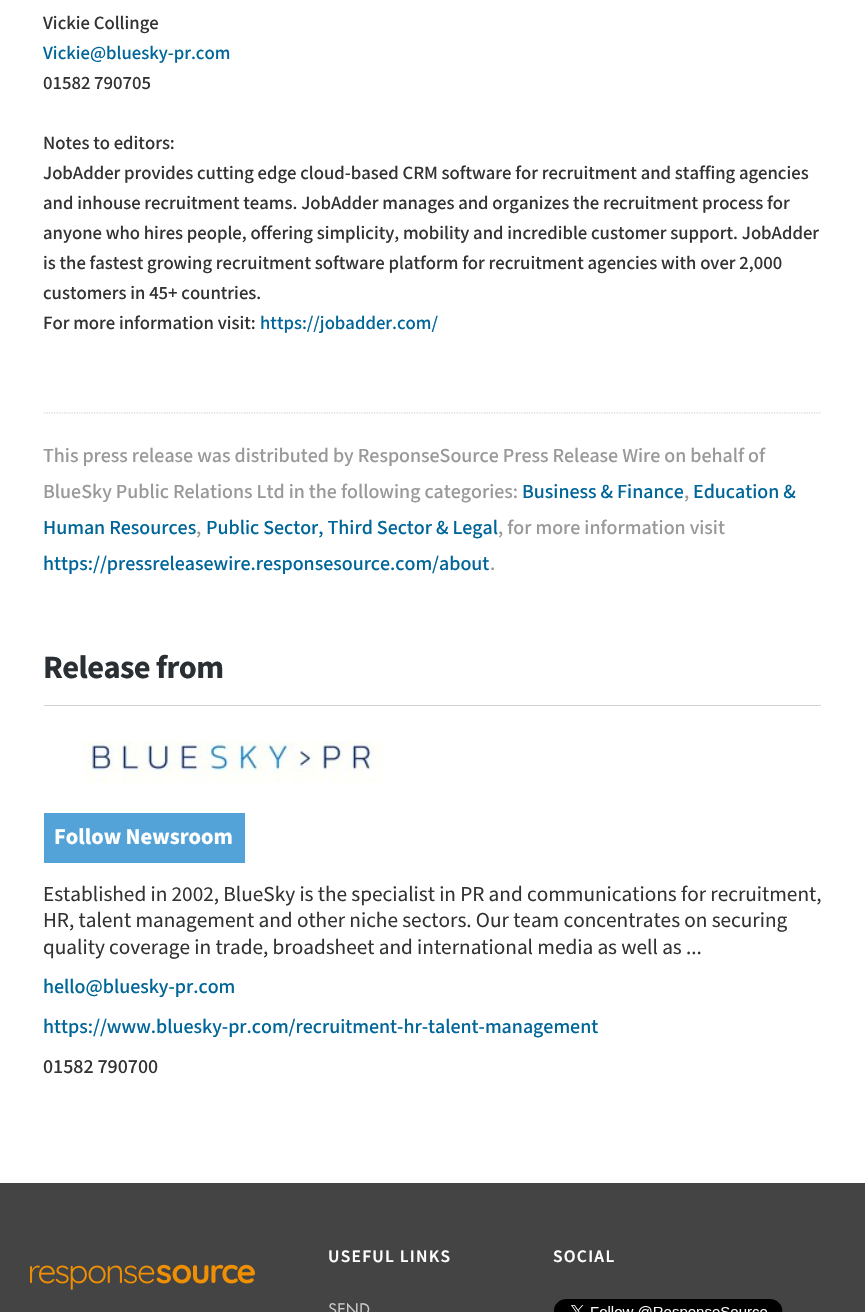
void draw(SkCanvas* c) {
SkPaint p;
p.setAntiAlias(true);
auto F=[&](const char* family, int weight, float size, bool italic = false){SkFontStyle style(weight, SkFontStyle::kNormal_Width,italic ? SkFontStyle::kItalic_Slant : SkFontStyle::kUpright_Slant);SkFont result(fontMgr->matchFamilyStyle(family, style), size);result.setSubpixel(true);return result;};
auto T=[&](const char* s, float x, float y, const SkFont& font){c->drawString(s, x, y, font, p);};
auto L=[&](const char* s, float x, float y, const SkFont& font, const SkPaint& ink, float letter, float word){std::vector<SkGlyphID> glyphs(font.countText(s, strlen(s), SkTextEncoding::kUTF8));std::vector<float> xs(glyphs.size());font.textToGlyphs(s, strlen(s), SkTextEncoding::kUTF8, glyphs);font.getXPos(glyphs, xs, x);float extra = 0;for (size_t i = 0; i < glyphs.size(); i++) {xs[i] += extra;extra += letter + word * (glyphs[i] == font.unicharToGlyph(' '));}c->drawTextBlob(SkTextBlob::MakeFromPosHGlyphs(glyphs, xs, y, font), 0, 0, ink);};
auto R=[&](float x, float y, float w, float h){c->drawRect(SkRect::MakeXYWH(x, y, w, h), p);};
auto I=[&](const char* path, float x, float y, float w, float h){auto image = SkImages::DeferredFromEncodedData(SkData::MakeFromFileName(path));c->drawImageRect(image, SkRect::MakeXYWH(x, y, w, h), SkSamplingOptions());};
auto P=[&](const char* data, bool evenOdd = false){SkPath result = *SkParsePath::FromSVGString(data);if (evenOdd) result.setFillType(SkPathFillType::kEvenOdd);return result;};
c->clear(0xffffffff);
auto f1 = F("Mada",500,18.75);
p.setColor(0xff333333);
T("Vickie Collinge",43,29,f1);
p.setColor(0xff006699);
T("Vickie@bluesky-pr.com",43,59,f1);
p.setColor(0xff333333);
T("01582 790705",43,89,f1);
T("Notes to editors:",43,149,f1);
T("JobAdder provides cutting edge cloud-based CRM software for recruitment and staffing agencies",43,179,f1);
T("and inhouse recruitment teams. JobAdder manages and organizes the recruitment process for",43,209,f1);
T("anyone who hires people, offering simplicity, mobility and incredible customer support. JobAdder",43,239,f1);
T("is the fastest growing recruitment software platform for recruitment agencies with over 2,000",43,269,f1);
T("customers in 45+ countries.",43,299,f1);
T("For more information visit:",43,329,f1);
p.setColor(0xff006699);
T("https://jobadder.com/",260,329,f1);
p.setStroke(true);
p.setStrokeWidth(1.2);
p.setColor(0xffcccccc);
p.setPathEffect(SkDashPathEffect::Make({{1.25f,1.25f}}, 0));
c->drawPath(P("M44 413h777"),p);
p.setPathEffect(nullptr);
auto f2 = F("Mada",500,20);
p.setStroke(false);
p.setColor(0xff999999);
T("This press release was distributed by ResponseSource Press Release Wire on behalf of",43,462,f2);
T("BlueSky Public Relations Ltd in the following categories:",43,498,f2);
p.setColor(0xff006699);
T("Business & Finance",522,498,f2);
p.setColor(0xff999999);
T(",",684,498,f2);
p.setColor(0xff006699);
T("Education &",693,498,f2);
T("Human Resources",43,534,f2);
p.setColor(0xff999999);
T(",",196,534,f2);
p.setColor(0xff006699);
T("Public Sector, Third Sector & Legal",206,534,f2);
p.setColor(0xff999999);
T(", for more information visit",498,534,f2);
p.setColor(0xff006699);
T("https://pressreleasewire.responsesource.com/about",43,570,f2);
p.setColor(0xff999999);
T(".",490,570,f2);
p.setColor(0xffd3d3d3);
R(44,705,777,1);
auto f3 = F("Mada",700,32.5);
p.setColor(0xff292f33);
L("Release from",43,678,f3,p,-.6,0);
I("1.png",82,740,304,43);
p.setColor(0xff54a3d8);
R(44,813,201,50);
auto f4 = F("Mada",700,22.5);
p.setColor(0xffffffff);
T("Follow Newsroom",54,844,f4);
auto f5 = F("Mada",400,21.25);
p.setColor(0xff333333);
T("Established in 2002, BlueSky is the specialist in PR and communications for recruitment,",43,901,f5);
T("HR, talent management and other niche sectors. Our team concentrates on securing",43,927,f5);
T("quality coverage in trade, broadsheet and international media as well as ...",43,954,f5);
p.setColor(0xff006699);
T("hello@bluesky-pr.com",43,993,f2);
T("https://www.bluesky-pr.com/recruitment-hr-talent-management",43,1033,f2);
p.setColor(0xff333333);
T("01582 790700",43,1073,f2);
p.setColor(0xff444444);
R(0,1183,865,129);
auto f6 = F("Mada",600,17.5);
p.setColor(0xffffffff);
L("USEFUL LINKS",328,1262,f6,p,1.25,0);
auto f7 = F("Futura PT",400,17.5);
p.setColor(0xffcccccc);
T("SEND",328,1315,f7);
p.setColor(0xffffffff);
L("SOCIAL",553,1262,f6,p,1.25,0);
I("2.png",553,1299,230,13);
I("3.png",30,1264,225,26);
}
